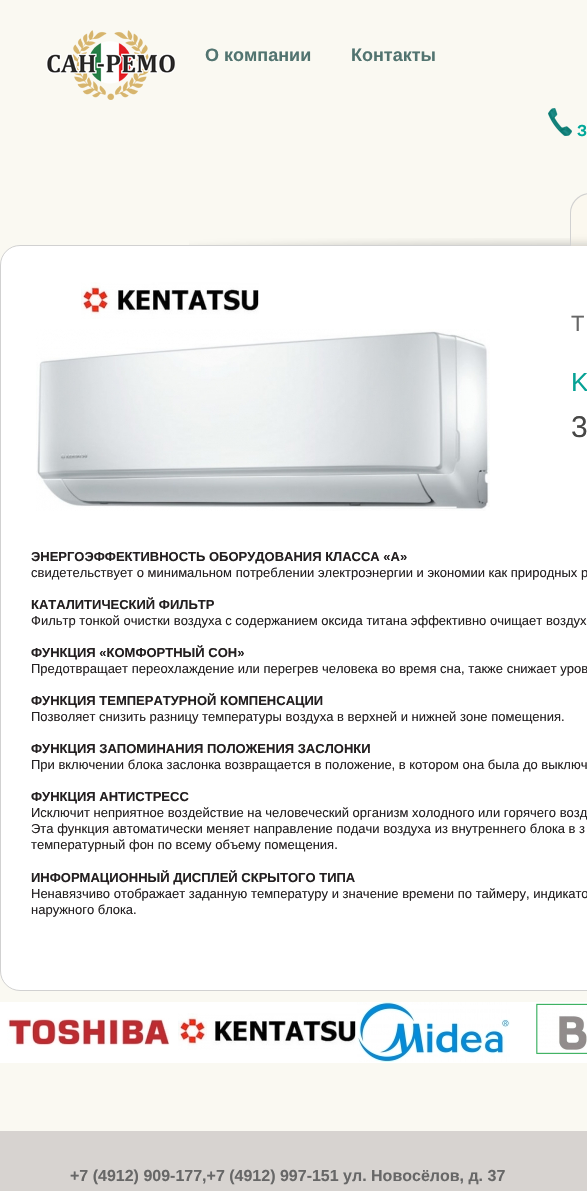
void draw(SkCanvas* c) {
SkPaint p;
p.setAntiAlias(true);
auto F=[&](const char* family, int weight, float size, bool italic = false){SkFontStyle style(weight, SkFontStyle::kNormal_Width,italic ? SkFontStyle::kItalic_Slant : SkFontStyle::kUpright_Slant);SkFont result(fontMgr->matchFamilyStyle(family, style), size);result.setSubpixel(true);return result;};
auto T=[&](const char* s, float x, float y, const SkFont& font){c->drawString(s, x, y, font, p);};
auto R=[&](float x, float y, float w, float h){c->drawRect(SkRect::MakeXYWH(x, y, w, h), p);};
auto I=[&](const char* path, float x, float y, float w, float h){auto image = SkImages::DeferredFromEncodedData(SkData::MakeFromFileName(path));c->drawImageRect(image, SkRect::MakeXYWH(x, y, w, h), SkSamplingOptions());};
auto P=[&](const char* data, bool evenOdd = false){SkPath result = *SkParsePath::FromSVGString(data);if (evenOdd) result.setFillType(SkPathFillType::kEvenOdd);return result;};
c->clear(0xfffaf9f2);
I("1.png",189,238,381,7);
I("2.png",46,30,129,70);
auto f1 = F("Liberation Sans",700,18);
p.setColor(0xff527470);
T("О компании",205,61,f1);
T("Контакты",351,61,f1);
I("3.png",548,108,24,28);
auto f2 = F("Liberation Sans",700,16);
p.setColor(0xff01a89a);
T("З",577,136,f2);
p.setColor(0xffffffff);
c->drawRoundRect(SkRect::MakeXYWH(.5,245.5,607,745),19.5,19.5,p);
p.setStroke(true);
p.setStrokeWidth(1);
p.setColor(0xffd1d1d1);
c->drawRoundRect(SkRect::MakeXYWH(.5,245.5,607,745),19.5,19.5,p);
I("4.png",570,194,17,52);
p.setStroke(false);
c->drawPath(P("M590 193h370c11 0 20 9 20 20v33h-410v-33c0-11 9-20 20-20zm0 1h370c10 0 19 9 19 19v33h-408v-33c0-10 9-19 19-19z",true),p);
I("5.png",81,282,178,37);
I("6.png",36,329,454,182);
auto f3 = F("Liberation Sans",400,22);
p.setColor(0xff676767);
T("Т",571,331,f3);
auto f4 = F("Liberation Sans",400,26);
p.setColor(0xff06a295);
T("K",571,391,f4);
auto f5 = F("Liberation Sans",400,30);
p.setColor(0xff474746);
T("3",571,437,f5);
auto f6 = F("Liberation Sans",700,13);
p.setColor(0xff231f20);
T("ЭНЕРГОЭФФЕКТИВНОСТЬ ОБОРУДОВАНИЯ КЛАССА «A»",31,561,f6);
auto f7 = F("Liberation Sans",400,13);
T("cвидетельствует о минимальном потреблении электроэнергии и экономии как природных р",31,577,f7);
T("КАТАЛИТИЧЕСКИЙ ФИЛЬТР",31,609,f6);
T("Фильтр тонкой очистки воздуха с содержанием оксида титана эффективно очищает воздух",31,625,f7);
T("ФУНКЦИЯ «КОМФОРТНЫЙ СОН»",31,657,f6);
T("Предотвращает переохлаждение или перегрев человека во время сна, также снижает уров",31,673,f7);
T("ФУНКЦИЯ ТЕМПЕРАТУРНОЙ КОМПЕНСАЦИИ",31,705,f6);
T("Позволяет снизить разницу температуры воздуха в верхней и нижней зоне помещения.",31,721,f7);
T("ФУНКЦИЯ ЗАПОМИНАНИЯ ПОЛОЖЕНИЯ ЗАСЛОНКИ",31,753,f6);
T("При включении блока заслонка возвращается в положение, в котором она была до выключ",31,769,f7);
T("ФУНКЦИЯ АНТИСТРЕСС",31,801,f6);
T("Исключит неприятное воздействие на человеческий организм холодного или горячего возд",31,817,f7);
T("Эта функция автоматически меняет направление подачи воздуха из внутреннего блока в з",31,833,f7);
T("температурный фон по всему объему помещения.",31,849,f7);
T("ИНФОРМАЦИОННЫЙ ДИСПЛЕЙ СКРЫТОГО ТИПА",31,882,f6);
T("Ненавязчиво отображает заданную температуру и значение времени по таймеру, индикато",31,898,f7);
T("наружного блока.",31,914,f7);
p.setColor(0xffffffff);
R(0,1002,587,61);
I("7.png",7,1018,163,28);
I("5.png",178,1013,178,37);
I("8.png",357,1002,153,60);
I("9.png",536,1003,51,52);
p.setColor(0xffd7d3d0);
R(0,1131,587,60);
p.setColor(0xff676767);
T("+7 (4912) 909-177,+7 (4912) 997-151 ул. Новосёлов, д. 37",70,1181,f2);
}
